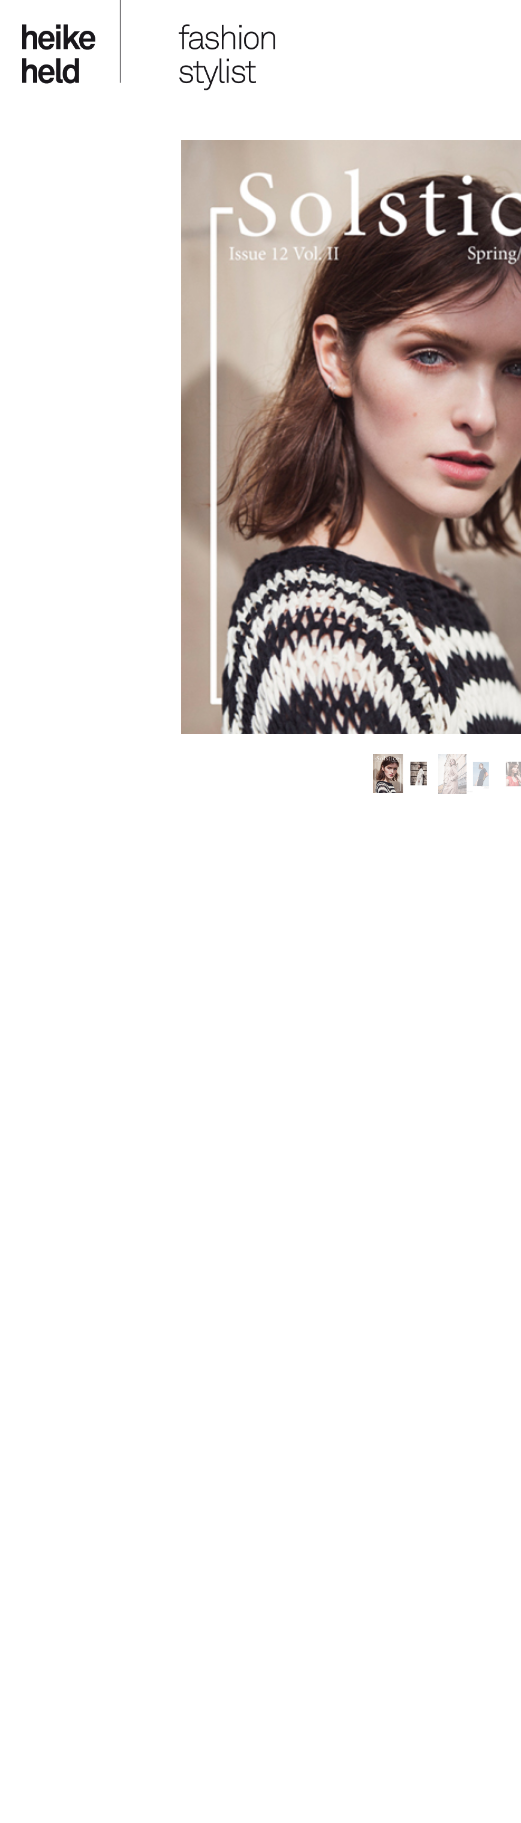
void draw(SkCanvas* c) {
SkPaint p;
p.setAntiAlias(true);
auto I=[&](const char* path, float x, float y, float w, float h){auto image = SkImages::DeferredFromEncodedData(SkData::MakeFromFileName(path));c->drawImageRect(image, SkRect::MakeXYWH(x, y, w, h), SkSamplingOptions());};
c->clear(0xffffffff);
I("1.png",22,0,254,91);
I("2.png",181,140,340,594);
I("3.png",373,754,54,39);
I("4.png",438,754,51,40);
I("5.png",505,761,16,26);
}
